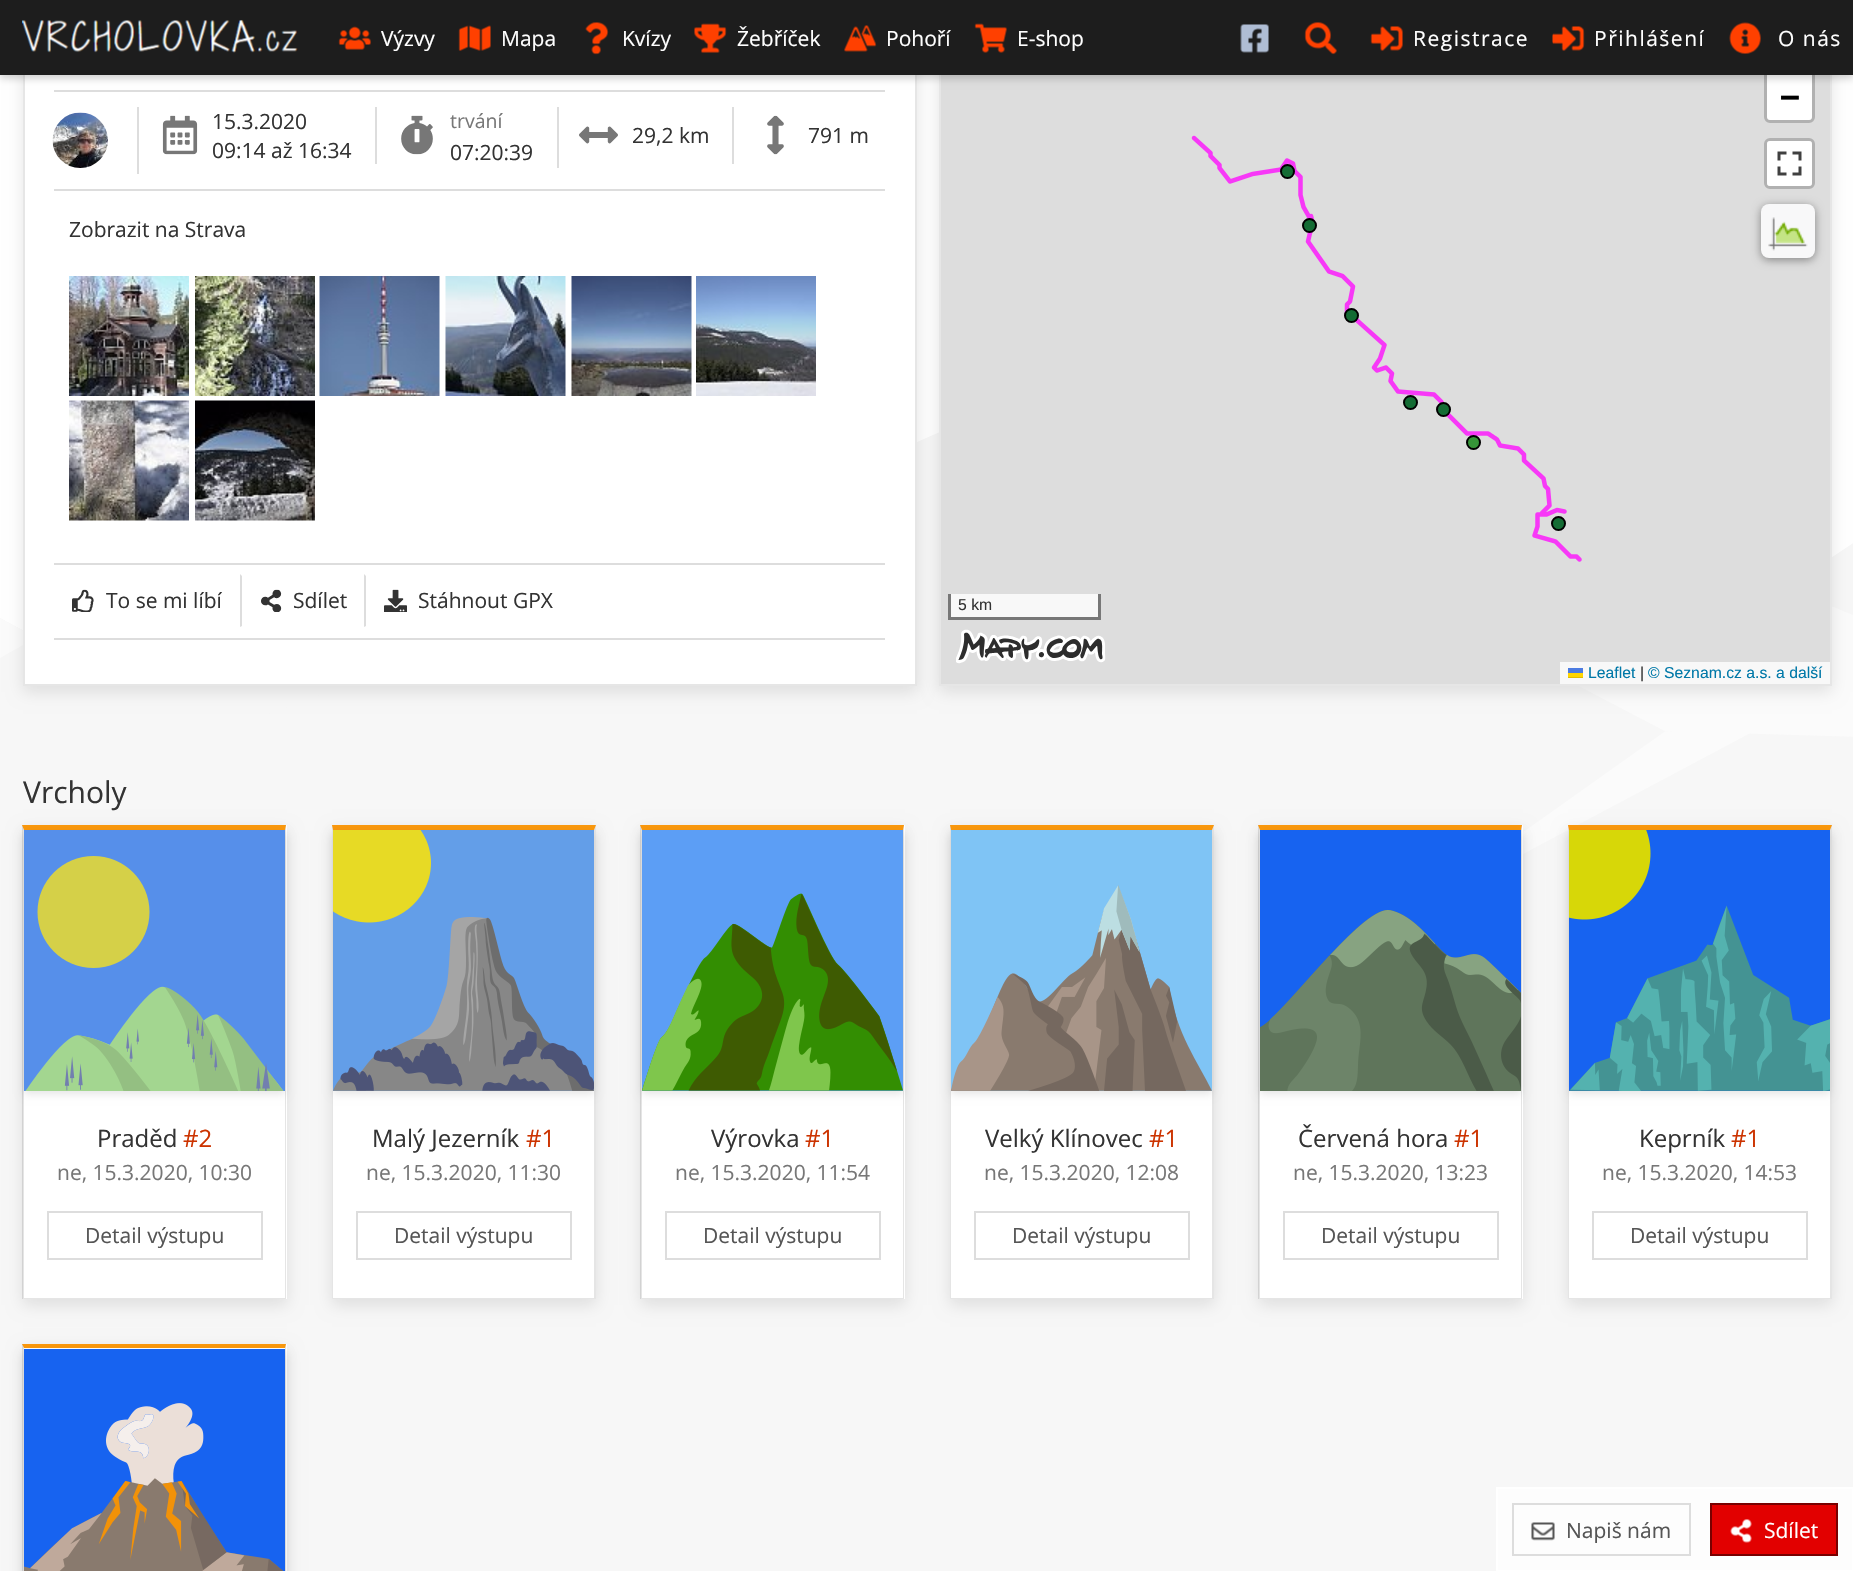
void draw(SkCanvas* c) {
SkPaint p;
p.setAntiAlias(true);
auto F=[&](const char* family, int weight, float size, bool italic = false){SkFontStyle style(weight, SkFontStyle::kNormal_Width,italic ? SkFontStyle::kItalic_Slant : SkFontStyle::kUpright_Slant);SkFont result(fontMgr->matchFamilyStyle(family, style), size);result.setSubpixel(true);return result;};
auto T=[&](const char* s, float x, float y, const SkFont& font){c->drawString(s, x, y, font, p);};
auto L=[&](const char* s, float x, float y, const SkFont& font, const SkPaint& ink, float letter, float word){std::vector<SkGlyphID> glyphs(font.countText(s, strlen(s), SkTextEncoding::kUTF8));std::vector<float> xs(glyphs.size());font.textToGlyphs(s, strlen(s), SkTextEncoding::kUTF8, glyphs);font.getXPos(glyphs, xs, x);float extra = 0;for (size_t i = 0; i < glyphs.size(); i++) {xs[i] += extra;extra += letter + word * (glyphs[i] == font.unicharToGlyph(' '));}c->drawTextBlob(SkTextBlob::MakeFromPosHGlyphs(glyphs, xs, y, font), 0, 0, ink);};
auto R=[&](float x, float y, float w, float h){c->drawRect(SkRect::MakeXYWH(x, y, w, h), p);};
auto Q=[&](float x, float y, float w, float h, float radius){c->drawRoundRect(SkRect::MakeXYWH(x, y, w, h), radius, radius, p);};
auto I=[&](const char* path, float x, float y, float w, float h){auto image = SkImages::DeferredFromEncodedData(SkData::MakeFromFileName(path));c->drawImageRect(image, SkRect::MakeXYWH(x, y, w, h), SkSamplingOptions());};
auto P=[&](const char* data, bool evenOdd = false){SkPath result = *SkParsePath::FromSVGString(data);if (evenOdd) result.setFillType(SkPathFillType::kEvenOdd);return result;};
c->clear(0xffffffff);
I("1.png",0,432,1853,1139);
p.setColor(0x1a000000);
p.setMaskFilter(SkMaskFilter::MakeBlur(kNormal_SkBlurStyle, 7.5));
c->drawRect(SkRect::MakeXYWH(23,17,894,675),p);
p.setMaskFilter(nullptr);
p.setColor(0xffffffff);
R(25,75,890,609);
p.setStroke(true);
p.setStrokeWidth(2);
p.setColor(0xffe6e6e6);
c->drawRect(SkRect::MakeXYWH(24,12,892,673),p);
p.setStroke(false);
p.setColor(0xffdddddd);
R(54,90,831,2);
p.setColor(0x1a000000);
p.setMaskFilter(SkMaskFilter::MakeBlur(kNormal_SkBlurStyle, 7.5));
c->drawRect(SkRect::MakeXYWH(939,17,893,675),p);
p.setMaskFilter(nullptr);
p.setStroke(true);
p.setColor(0xffe6e6e6);
c->drawRect(SkRect::MakeXYWH(940,12,891,673),p);
p.setStroke(false);
p.setColor(0xffdddddd);
R(941,75,889,609);
p.setStroke(true);
p.setStrokeWidth(3);
p.setColor(0xffb1b1b1);
c->drawRoundRect(SkRect::MakeXYWH(1765.5,28.5,48,93),4.5,4.5,p);
p.setStroke(false);
p.setColor(0xffffffff);
c->drawPath(P("M1767 75h45v42c0 1.5-1.5 3-3 3h-39c-1.5 0-3-1.5-3-3z"),p);
p.setColor(0x33000000);
p.setMaskFilter(SkMaskFilter::MakeBlur(kNormal_SkBlurStyle, 4));
c->drawRect(SkRect::MakeXYWH(0,3,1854,75),p);
p.setMaskFilter(nullptr);
p.setColor(0xff1d1d1d);
R(0,0,1853,75);
I("2.png",22,20,276,33);
I("3.png",338,26,33,24);
auto f1 = F("Open Sans",400,21);
p.setColor(0xffffffff);
T("Výzvy",381,46,f1);
I("4.png",458,25,33,26);
T("Mapa",501,46,f1);
I("5.png",585,22,24,33);
T("Kvízy",622,46,f1);
I("6.png",694,23,33,30);
T("Žebříček",737,46,f1);
I("7.png",844,25,33,27);
T("Pohoří",886,46,f1);
I("8.png",974,23,33,30);
T("E-shop",1017,46,f1);
I("9.png",1240,24,29,29);
I("10.png",1304,22,33,33);
I("11.png",1370,26,33,25);
L("Registrace",1413,46,f1,p,1.5,0);
I("12.png",1552,26,33,25);
L("Přihlášení",1594,46,f1,p,1.5,0);
I("13.png",1729,22,32,32);
L("O nás",1778,46,f1,p,1.5,0);
p.setColor(0xffdddddd);
R(54,189,831,2);
R(137,107,2,67);
I("14.png",52,112,56,56);
R(375,107,2,57);
I("15.png",162,115,36,40);
p.setColor(0xff333333);
T("15.3.2020",212,129,f1);
T("09:14 až 16:34",212,158,f1);
p.setColor(0xffdddddd);
R(557,107,2,61);
I("16.png",401,115,32,40);
auto f2 = F("Open Sans",400,19.5);
p.setColor(0xff777777);
T("trvání",450,128,f2);
p.setColor(0xff333333);
T("07:20:39",450,160,f1);
p.setColor(0xffdddddd);
R(732,107,2,57);
I("17.png",579,126,39,18);
p.setColor(0xff333333);
T("29,2 km",632,143,f1);
I("18.png",767,115,17,40);
T("791 m",808,143,f1);
T("Zobrazit na Strava",69,237,f1);
I("19.png",69,276,120,120);
I("20.png",195,276,120,120);
I("21.png",319,276,121,120);
I("22.png",445,276,121,120);
I("23.png",571,276,121,120);
I("24.png",696,276,120,120);
I("25.png",69,400,120,121);
I("26.png",195,400,120,121);
p.setColor(0xffdddddd);
R(54,563,831,2);
R(54,638,831,2);
I("27.png",72,589,22,23);
p.setColor(0xff333333);
T("To se mi líbí",106,608,f1);
p.setColor(0xffdddddd);
c->drawPath(P("M240 627v-53l2 2v50z"),p);
I("28.png",261,589,21,23);
p.setColor(0xff333333);
T("Sdílet",293,608,f1);
p.setColor(0xffdddddd);
c->drawPath(P("M364 627v-53l2 2v50z"),p);
I("29.png",384,589,23,23);
p.setColor(0xff333333);
T("Stáhnout GPX",418,608,f1);
auto f3 = F("DejaVu Sans Mono",700,33);
p.setColor(0xff000000);
T("−",1780,108,f3);
p.setStroke(true);
p.setColor(0xffb1b1b1);
c->drawRoundRect(SkRect::MakeXYWH(1765.5,139.5,48,48),4.5,4.5,p);
p.setStroke(false);
p.setColor(0xffffffff);
Q(1767,141,45,45,3);
I("30.png",1777,151,25,25);
p.setColor(0x66000000);
p.setMaskFilter(SkMaskFilter::MakeBlur(kNormal_SkBlurStyle, 5));
c->drawRoundRect(SkRect::MakeXYWH(1761,206,54,54),8,8,p);
p.setMaskFilter(nullptr);
p.setColor(0xfff8f8f9);
Q(1761,204,54,54,8);
I("31.png",1768,217,40,34);
p.setColor(0xfff8f8f8);
R(951,594,147,23);
p.setColor(0xff777777);
R(1098,594,3,26);
R(948,617,153,3);
R(948,594,3,26);
auto f4 = F("Liberation Sans",400,15.75);
p.setColor(0xff333333);
T("5 km",958,610,f4);
I("32.png",956,629,150,35);
p.setColor(0xfff8f8f8);
R(1560,662,270,22);
p.setColor(0xff0078a8);
T("Leaflet",1588,678,f4);
p.setColor(0xff4c7be1);
R(1568,668,15,5);
p.setColor(0xffffd500);
R(1568,673,15,4);
p.setColor(0xffe0bc00);
R(1568,677,15,1);
p.setColor(0xff333333);
T("|",1640,678,f4);
p.setColor(0xff0078a8);
T("© Seznam.cz a.s. a další",1648,678,f4);
I("33.png",1191,135,391,427);
p.setColor(0xff146c34);
c->drawCircle(1287.5,171.5,6.5,p);
p.setStroke(true);
p.setStrokeWidth(2);
p.setColor(0xff000000);
c->drawCircle(1287.5,171.5,6.5,p);
p.setStroke(false);
p.setColor(0xff146c34);
c->drawCircle(1309.5,225.5,6.5,p);
p.setStroke(true);
p.setColor(0xff000000);
c->drawCircle(1309.5,225.5,6.5,p);
p.setStroke(false);
p.setColor(0xff146c34);
c->drawCircle(1351.5,315.5,6.5,p);
p.setStroke(true);
p.setColor(0xff000000);
c->drawCircle(1351.5,315.5,6.5,p);
p.setStroke(false);
p.setColor(0xff146c34);
c->drawCircle(1410.5,402.5,6.5,p);
p.setStroke(true);
p.setColor(0xff000000);
c->drawCircle(1410.5,402.5,6.5,p);
p.setStroke(false);
p.setColor(0xff146c34);
c->drawCircle(1443.5,409.5,6.5,p);
p.setStroke(true);
p.setColor(0xff000000);
c->drawCircle(1443.5,409.5,6.5,p);
p.setStroke(false);
p.setColor(0xff369538);
c->drawCircle(1473.5,442.5,6.5,p);
p.setStroke(true);
p.setColor(0xff000000);
c->drawCircle(1473.5,442.5,6.5,p);
p.setStroke(false);
p.setColor(0xff146c34);
c->drawCircle(1558.5,523.5,6.5,p);
p.setStroke(true);
p.setColor(0xff000000);
c->drawCircle(1558.5,523.5,6.5,p);
auto f5 = F("Open Sans",400,30);
p.setStroke(false);
p.setColor(0xff333333);
T("Vrcholy",23,803,f5);
p.setColor(0x1a000000);
p.setMaskFilter(SkMaskFilter::MakeBlur(kNormal_SkBlurStyle, 7.5));
c->drawRect(SkRect::MakeXYWH(23,831,264,474),p);
p.setMaskFilter(nullptr);
p.setColor(0xffffffff);
R(23,825,264,474);
p.setColor(0xfffa980d);
c->drawPath(P("M22 825h264l-1 5h-261z"),p);
p.setColor(0x1a000000);
c->drawPath(P("M286 825v474l-1-1v-468z"),p);
c->drawPath(P("M286 1299h-264l2-1h261z"),p);
c->drawPath(P("M22 1299v-474l2 5v468z"),p);
c->save();
c->clipPath(P("M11 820h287v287h-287zm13 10h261v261h-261z",true),true);
p.setMaskFilter(SkMaskFilter::MakeBlur(kNormal_SkBlurStyle, 4));
c->drawRect(SkRect::MakeXYWH(24,833,261,261),p);
p.setMaskFilter(nullptr);
c->restore();
I("34.png",24,830,261,261);
auto f6 = F("Open Sans",400,24);
p.setColor(0xff333333);
T("Praděd",97,1147,f6);
p.setColor(0xffcc3300);
T("#2",183,1147,f6);
p.setColor(0xff777777);
T("ne, 15.3.2020, 10:30",57,1180,f1);
p.setStroke(true);
p.setColor(0xffdddddd);
c->drawRect(SkRect::MakeXYWH(48,1212,214,47),p);
p.setStroke(false);
p.setColor(0xff555555);
T("Detail výstupu",85,1243,f1);
p.setColor(0x1a000000);
p.setMaskFilter(SkMaskFilter::MakeBlur(kNormal_SkBlurStyle, 7.5));
c->drawRect(SkRect::MakeXYWH(332,831,264,474),p);
p.setMaskFilter(nullptr);
p.setColor(0xffffffff);
R(332,825,264,474);
p.setColor(0xfffa980d);
c->drawPath(P("M332 825h264l-2 5h-261z"),p);
p.setColor(0x1a000000);
c->drawPath(P("M596 825v474l-2-1v-468z"),p);
c->drawPath(P("M596 1299h-264l1-1h261z"),p);
c->drawPath(P("M332 1299v-474l1 5v468z"),p);
c->save();
c->clipPath(P("M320 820h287v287h-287zm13 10h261v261h-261z",true),true);
p.setMaskFilter(SkMaskFilter::MakeBlur(kNormal_SkBlurStyle, 4));
c->drawRect(SkRect::MakeXYWH(333,833,261,261),p);
p.setMaskFilter(nullptr);
c->restore();
I("35.png",333,830,261,261);
p.setColor(0xff333333);
T("Malý Jezerník",372,1147,f6);
p.setColor(0xffcc3300);
T("#1",526,1147,f6);
p.setColor(0xff777777);
T("ne, 15.3.2020, 11:30",366,1180,f1);
p.setStroke(true);
p.setColor(0xffdddddd);
c->drawRect(SkRect::MakeXYWH(357,1212,214,47),p);
p.setStroke(false);
p.setColor(0xff555555);
T("Detail výstupu",394,1243,f1);
p.setColor(0x1a000000);
p.setMaskFilter(SkMaskFilter::MakeBlur(kNormal_SkBlurStyle, 7.5));
c->drawRect(SkRect::MakeXYWH(641,831,264,474),p);
p.setMaskFilter(nullptr);
p.setColor(0xffffffff);
R(641,825,264,474);
p.setColor(0xfffa980d);
c->drawPath(P("M640 825h264l-1 5h-261z"),p);
p.setColor(0x1a000000);
c->drawPath(P("M904 825v474l-1-1v-468z"),p);
c->drawPath(P("M904 1299h-264l2-1h261z"),p);
c->drawPath(P("M640 1299v-474l2 5v468z"),p);
c->save();
c->clipPath(P("M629 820h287v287h-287zm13 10h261v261h-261z",true),true);
p.setMaskFilter(SkMaskFilter::MakeBlur(kNormal_SkBlurStyle, 4));
c->drawRect(SkRect::MakeXYWH(642,833,261,261),p);
p.setMaskFilter(nullptr);
c->restore();
I("36.png",642,830,261,261);
p.setColor(0xff333333);
T("Výrovka",711,1147,f6);
p.setColor(0xffcc3300);
T("#1",805,1147,f6);
p.setColor(0xff777777);
T("ne, 15.3.2020, 11:54",675,1180,f1);
p.setStroke(true);
p.setColor(0xffdddddd);
c->drawRect(SkRect::MakeXYWH(666,1212,214,47),p);
p.setStroke(false);
p.setColor(0xff555555);
T("Detail výstupu",703,1243,f1);
p.setColor(0x1a000000);
p.setMaskFilter(SkMaskFilter::MakeBlur(kNormal_SkBlurStyle, 7.5));
c->drawRect(SkRect::MakeXYWH(950,831,264,474),p);
p.setMaskFilter(nullptr);
p.setColor(0xffffffff);
R(950,825,264,474);
p.setColor(0xfffa980d);
c->drawPath(P("M950 825h264l-2 5h-261z"),p);
p.setColor(0x1a000000);
c->drawPath(P("M1214 825v474l-2-1v-468z"),p);
c->drawPath(P("M1214 1299h-264l1-1h261z"),p);
c->drawPath(P("M950 1299v-474l1 5v468z"),p);
c->save();
c->clipPath(P("M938 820h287v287h-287zm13 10h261v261h-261z",true),true);
p.setMaskFilter(SkMaskFilter::MakeBlur(kNormal_SkBlurStyle, 4));
c->drawRect(SkRect::MakeXYWH(951,833,261,261),p);
p.setMaskFilter(nullptr);
c->restore();
I("37.png",951,830,261,261);
p.setColor(0xff333333);
T("Velký Klínovec",985,1147,f6);
p.setColor(0xffcc3300);
T("#1",1149,1147,f6);
p.setColor(0xff777777);
T("ne, 15.3.2020, 12:08",984,1180,f1);
p.setStroke(true);
p.setColor(0xffdddddd);
c->drawRect(SkRect::MakeXYWH(975,1212,214,47),p);
p.setStroke(false);
p.setColor(0xff555555);
T("Detail výstupu",1012,1243,f1);
p.setColor(0x1a000000);
p.setMaskFilter(SkMaskFilter::MakeBlur(kNormal_SkBlurStyle, 7.5));
c->drawRect(SkRect::MakeXYWH(1259,831,264,474),p);
p.setMaskFilter(nullptr);
p.setColor(0xffffffff);
R(1259,825,264,474);
p.setColor(0xfffa980d);
c->drawPath(P("M1258 825h264l-1 5h-261z"),p);
p.setColor(0x1a000000);
c->drawPath(P("M1522 825v474l-1-1v-468z"),p);
c->drawPath(P("M1522 1299h-264l2-1h261z"),p);
c->drawPath(P("M1258 1299v-474l2 5v468z"),p);
c->save();
c->clipPath(P("M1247 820h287v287h-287zm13 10h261v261h-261z",true),true);
p.setMaskFilter(SkMaskFilter::MakeBlur(kNormal_SkBlurStyle, 4));
c->drawRect(SkRect::MakeXYWH(1260,833,261,261),p);
p.setMaskFilter(nullptr);
c->restore();
I("38.png",1260,830,261,261);
p.setColor(0xff333333);
T("Červená hora",1298,1147,f6);
p.setColor(0xffcc3300);
T("#1",1454,1147,f6);
p.setColor(0xff777777);
T("ne, 15.3.2020, 13:23",1293,1180,f1);
p.setStroke(true);
p.setColor(0xffdddddd);
c->drawRect(SkRect::MakeXYWH(1284,1212,214,47),p);
p.setStroke(false);
p.setColor(0xff555555);
T("Detail výstupu",1321,1243,f1);
p.setColor(0x1a000000);
p.setMaskFilter(SkMaskFilter::MakeBlur(kNormal_SkBlurStyle, 7.5));
c->drawRect(SkRect::MakeXYWH(1568,831,264,474),p);
p.setMaskFilter(nullptr);
p.setColor(0xffffffff);
R(1568,825,264,474);
p.setColor(0xfffa980d);
c->drawPath(P("M1568 825h264l-2 5h-261z"),p);
p.setColor(0x1a000000);
c->drawPath(P("M1832 825v474l-2-1v-468z"),p);
c->drawPath(P("M1832 1299h-264l1-1h261z"),p);
c->drawPath(P("M1568 1299v-474l1 5v468z"),p);
c->save();
c->clipPath(P("M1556 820h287v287h-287zm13 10h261v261h-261z",true),true);
p.setMaskFilter(SkMaskFilter::MakeBlur(kNormal_SkBlurStyle, 4));
c->drawRect(SkRect::MakeXYWH(1569,833,261,261),p);
p.setMaskFilter(nullptr);
c->restore();
I("39.png",1569,830,261,261);
p.setColor(0xff333333);
T("Keprník",1639,1147,f6);
p.setColor(0xffcc3300);
T("#1",1731,1147,f6);
p.setColor(0xff777777);
T("ne, 15.3.2020, 14:53",1602,1180,f1);
p.setStroke(true);
p.setColor(0xffdddddd);
c->drawRect(SkRect::MakeXYWH(1593,1212,214,47),p);
p.setStroke(false);
p.setColor(0xff555555);
T("Detail výstupu",1630,1243,f1);
p.setColor(0x1a000000);
p.setMaskFilter(SkMaskFilter::MakeBlur(kNormal_SkBlurStyle, 7.5));
c->drawRect(SkRect::MakeXYWH(23,1350,264,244),p);
p.setMaskFilter(nullptr);
p.setColor(0xffffffff);
R(23,1344,264,227);
p.setColor(0xfffa980d);
c->drawPath(P("M22 1344h264l-1 4h-261z"),p);
p.setColor(0x1a000000);
c->drawPath(P("M286 1344v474l-1-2v-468z"),p);
c->drawPath(P("M22 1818v-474l2 4v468z"),p);
c->save();
c->clipPath(P("M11 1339h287v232h-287zm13 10h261v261h-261z",true),true);
p.setMaskFilter(SkMaskFilter::MakeBlur(kNormal_SkBlurStyle, 4));
c->drawRect(SkRect::MakeXYWH(24,1352,261,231),p);
p.setMaskFilter(nullptr);
c->restore();
I("40.png",24,1349,261,222);
p.setColor(0xfffdfdfd);
c->drawRect(SkRect::MakeXYWH(1497,1488,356,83),p);
p.setStroke(true);
p.setColor(0xffffffff);
c->drawRect(SkRect::MakeXYWH(1497,1488,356,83),p);
p.setColor(0xffdddddd);
c->drawRect(SkRect::MakeXYWH(1513,1504,177,51),p);
I("41.png",1531,1522,24,19);
p.setStroke(false);
p.setColor(0xff555555);
T("Napiš nám",1566,1538,f1);
p.setColor(0xffe20000);
c->drawRect(SkRect::MakeXYWH(1711,1504,126,51),p);
p.setStroke(true);
p.setColor(0xff790000);
c->drawRect(SkRect::MakeXYWH(1711,1504,126,51),p);
I("42.png",1730,1519,22,24);
p.setStroke(false);
p.setColor(0xffffffff);
T("Sdílet",1764,1538,f1);
}
